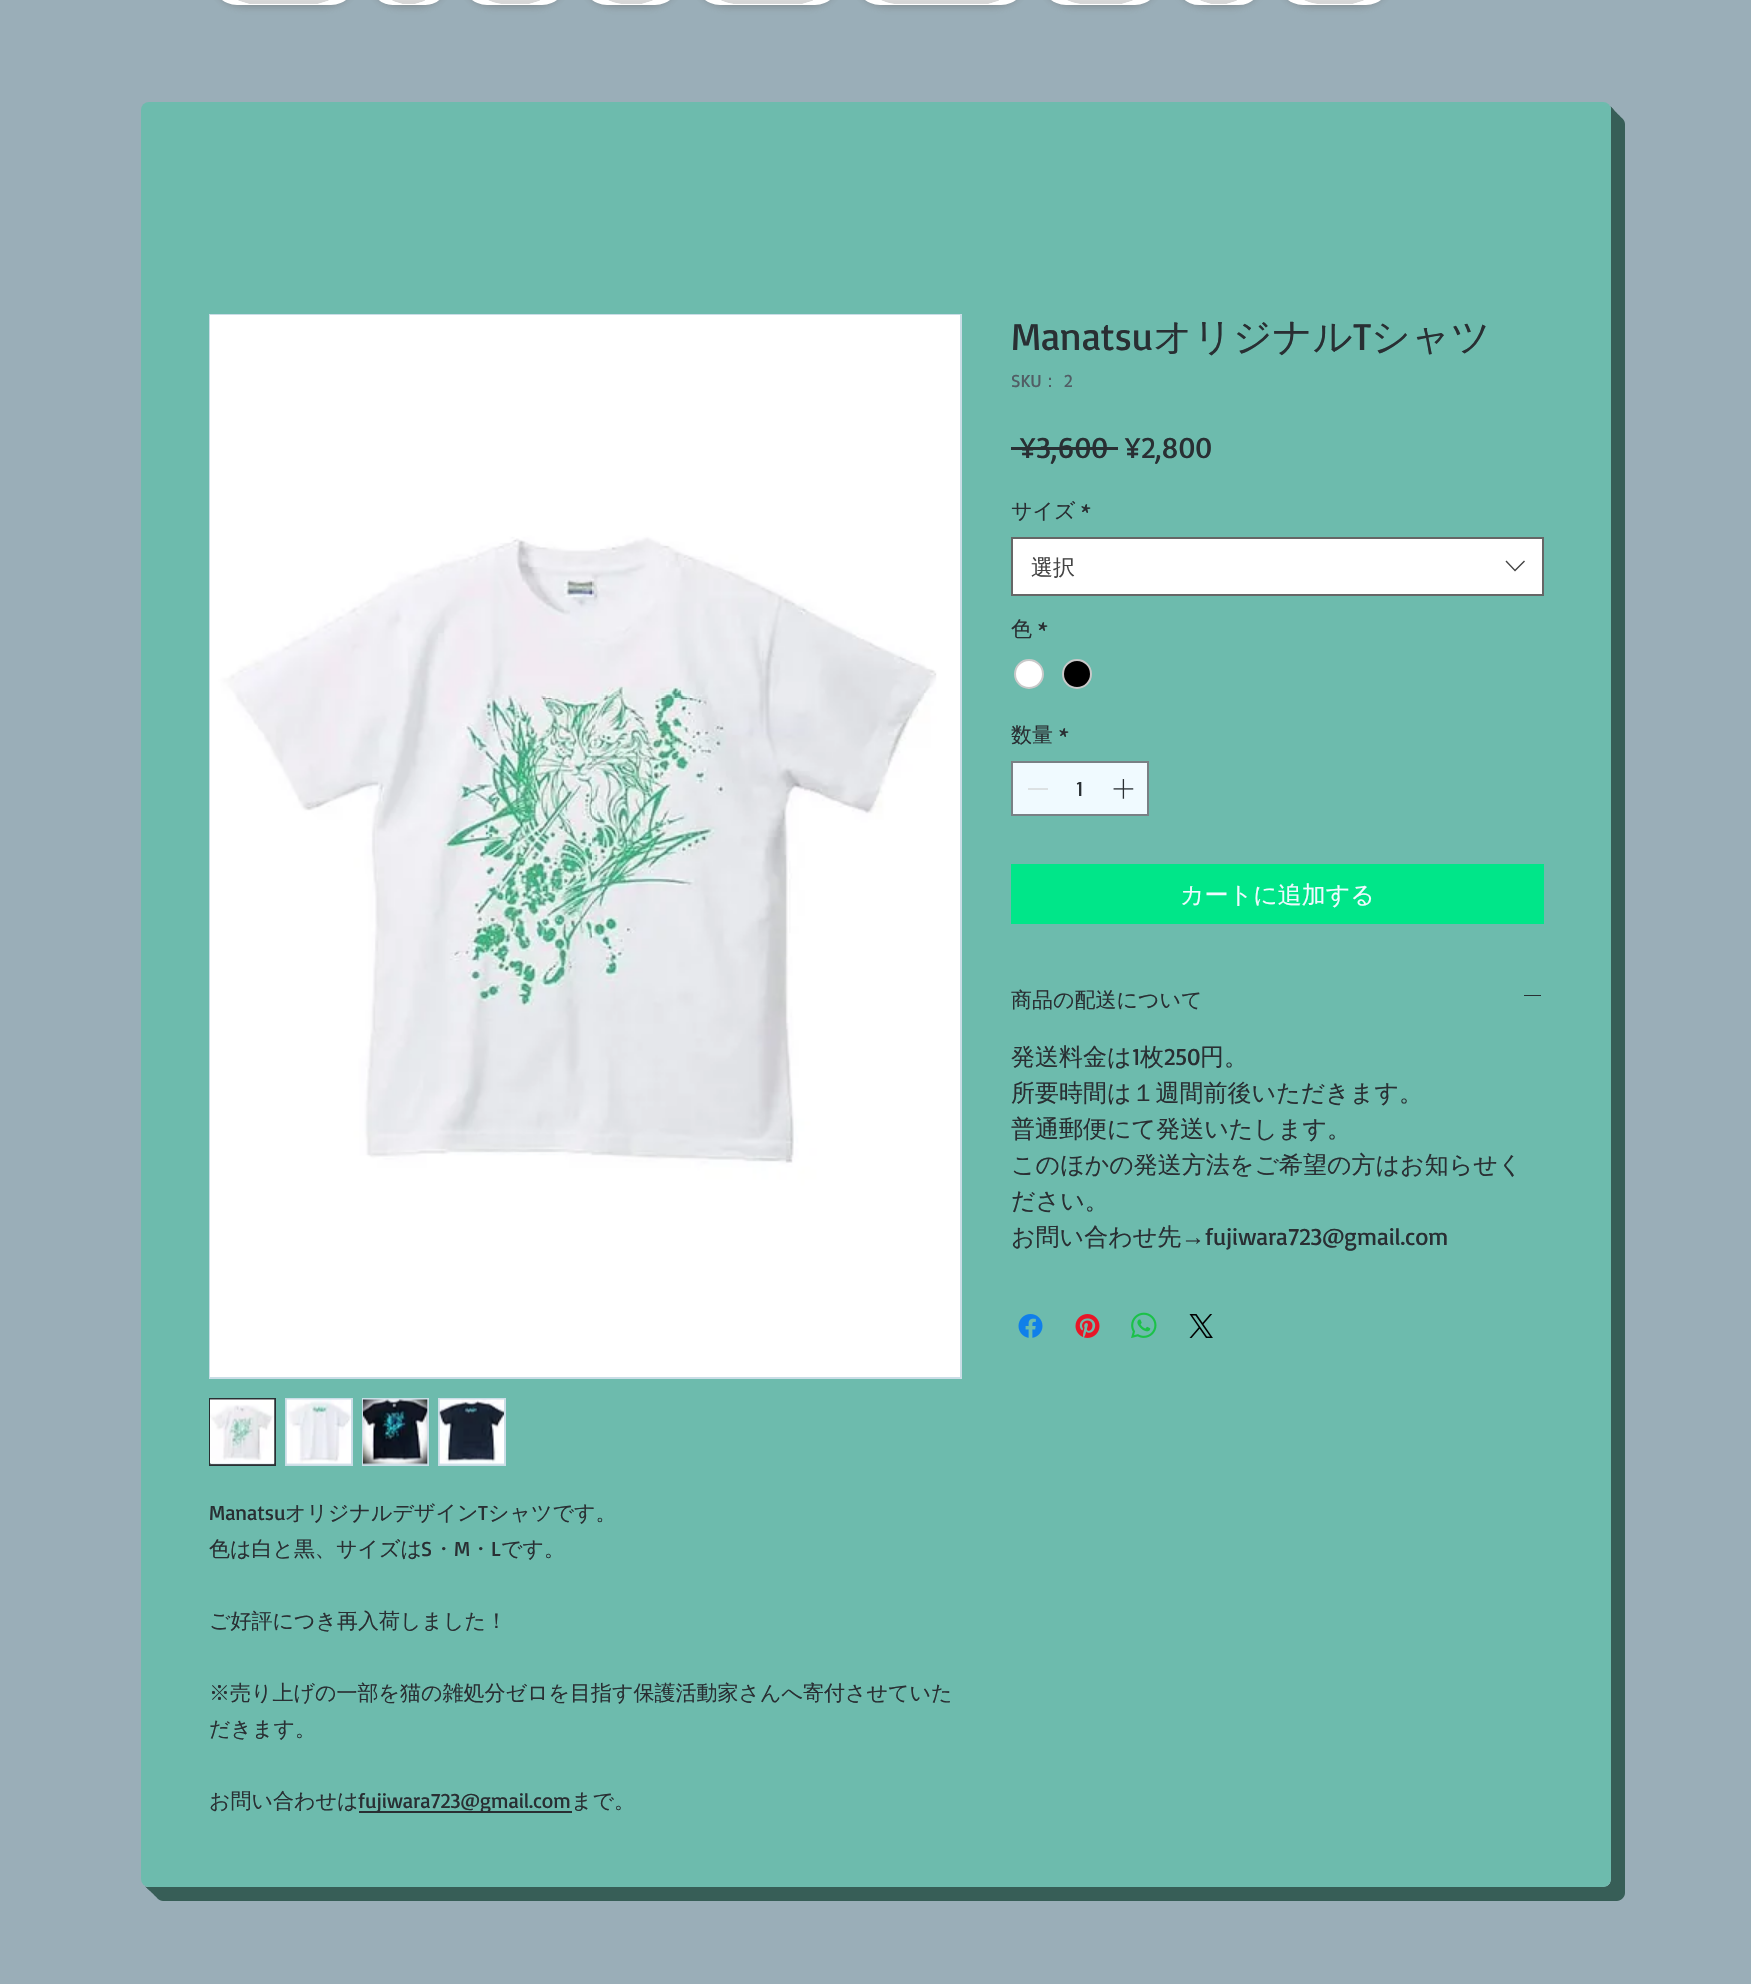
void draw(SkCanvas* c) {
SkPaint p;
p.setAntiAlias(true);
auto F=[&](const char* family, int weight, float size, bool italic = false){SkFontStyle style(weight, SkFontStyle::kNormal_Width,italic ? SkFontStyle::kItalic_Slant : SkFontStyle::kUpright_Slant);SkFont result(fontMgr->matchFamilyStyle(family, style), size);result.setSubpixel(true);return result;};
auto T=[&](const char* s, float x, float y, const SkFont& font){c->drawString(s, x, y, font, p);};
auto R=[&](float x, float y, float w, float h){c->drawRect(SkRect::MakeXYWH(x, y, w, h), p);};
auto Q=[&](float x, float y, float w, float h, float radius){c->drawRoundRect(SkRect::MakeXYWH(x, y, w, h), radius, radius, p);};
auto I=[&](const char* path, float x, float y, float w, float h){auto image = SkImages::DeferredFromEncodedData(SkData::MakeFromFileName(path));c->drawImageRect(image, SkRect::MakeXYWH(x, y, w, h), SkSamplingOptions());};
auto P=[&](const char* data, bool evenOdd = false){SkPath result = *SkParsePath::FromSVGString(data);if (evenOdd) result.setFillType(SkPathFillType::kEvenOdd);return result;};
c->clear(0xff9aaeb8);
p.setColor(0x996b6a6a);
p.setMaskFilter(SkMaskFilter::MakeBlur(kNormal_SkBlurStyle, 4));
c->drawRoundRect(SkRect::MakeXYWH(212,-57,144,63),45,45,p);
p.setMaskFilter(nullptr);
p.setColor(0xffffffff);
Q(212,-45,144,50,45);
I("1.png",238,0,91,4);
p.setColor(0x996b6a6a);
p.setMaskFilter(SkMaskFilter::MakeBlur(kNormal_SkBlurStyle, 4));
c->drawRoundRect(SkRect::MakeXYWH(371,-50,76,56),38,38,p);
p.setMaskFilter(nullptr);
p.setColor(0xffffffff);
Q(371,-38,76,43,38);
I("2.png",392,0,33,4);
p.setColor(0x996b6a6a);
p.setMaskFilter(SkMaskFilter::MakeBlur(kNormal_SkBlurStyle, 4));
c->drawRoundRect(SkRect::MakeXYWH(462,-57,105,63),45,45,p);
p.setMaskFilter(nullptr);
p.setColor(0xffffffff);
Q(462,-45,105,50,45);
I("3.png",488,0,52,4);
p.setColor(0x996b6a6a);
p.setMaskFilter(SkMaskFilter::MakeBlur(kNormal_SkBlurStyle, 4));
c->drawRoundRect(SkRect::MakeXYWH(582,-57,98,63),45,45,p);
p.setMaskFilter(nullptr);
p.setColor(0xffffffff);
Q(582,-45,98,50,45);
I("4.png",608,0,45,4);
p.setColor(0x996b6a6a);
p.setMaskFilter(SkMaskFilter::MakeBlur(kNormal_SkBlurStyle, 4));
c->drawRoundRect(SkRect::MakeXYWH(695,-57,145,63),45,45,p);
p.setMaskFilter(nullptr);
p.setColor(0xffffffff);
Q(695,-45,145,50,45);
I("5.png",721,0,92,4);
p.setColor(0x996b6a6a);
p.setMaskFilter(SkMaskFilter::MakeBlur(kNormal_SkBlurStyle, 4));
c->drawRoundRect(SkRect::MakeXYWH(855,-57,171,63),45,45,p);
p.setMaskFilter(nullptr);
p.setColor(0xffffffff);
Q(855,-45,171,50,45);
I("6.png",881,0,118,4);
p.setColor(0x996b6a6a);
p.setMaskFilter(SkMaskFilter::MakeBlur(kNormal_SkBlurStyle, 4));
c->drawRoundRect(SkRect::MakeXYWH(1041,-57,119,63),45,45,p);
p.setMaskFilter(nullptr);
p.setColor(0xffffffff);
Q(1041,-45,119,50,45);
I("7.png",1067,0,66,4);
p.setColor(0x996b6a6a);
p.setMaskFilter(SkMaskFilter::MakeBlur(kNormal_SkBlurStyle, 4));
c->drawRoundRect(SkRect::MakeXYWH(1175,-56,88,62),44,44,p);
p.setMaskFilter(nullptr);
p.setColor(0xffffffff);
Q(1175,-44,88,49,44);
I("8.png",1200,0,37,4);
p.setColor(0x996b6a6a);
p.setMaskFilter(SkMaskFilter::MakeBlur(kNormal_SkBlurStyle, 4));
c->drawRoundRect(SkRect::MakeXYWH(1278,-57,113,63),45,45,p);
p.setMaskFilter(nullptr);
p.setColor(0xffffffff);
Q(1278,-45,113,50,45);
I("9.png",1304,0,60,4);
p.setColor(0xff375e57);
c->drawPath(P("M155 1887v6c0 4 4 8 8 8h1454c4 0 8-4 8-8v-1769c0-4-4-8-8-8h-6v1764c0 4-3 7-7 7z"),p);
c->drawPath(P("M152 1887v3c0 4 4 8 8 8h1454c4 0 8-4 8-8v-1769c0-4-4-8-8-8h-3v1767c0 4-3 7-7 7z"),p);
c->drawPath(P("M149 1887c0 4 4 8 8 8h1454c4 0 8-4 8-8v-1769c0-4-4-8-8-8v1770c0 4-3 7-7 7z"),p);
c->drawPath(P("M146 1887c2 3 5 5 8 5h1454c4 0 8-4 8-8v-1769c0-3-2-6-5-8v1773c0 4-3 7-7 7z"),p);
c->drawPath(P("M145 1886c1 2 3 3 6 3h1454c4 0 8-4 8-8v-1769c0-3-1-5-3-6c1 1 1 2 1 4v1770c0 4-3 7-7 7h-1456c-1 0-2 0-3-1z"),p);
p.setColor(0xff6dbbad);
Q(141,102,1470,1785,8);
auto f1 = F("Basic",400,39);
p.setColor(0xff292f33);
T("Manatsu",1011,350,f1);
auto f2 = F("WenQuanYi Zen Hei",500,39);
T("オリジナル",1153,350,f2);
T("T",1353,350,f1);
T("シャツ",1371,350,f2);
auto f3 = F("Basic",400,18);
p.setColor(0xff515e65);
T("SKU",1011,387,f3);
auto f4 = F("WenQuanYi Zen Hei",500,18);
T("：",1041,387,f4);
T("2",1064,387,f3);
auto f5 = F("Basic",400,30);
p.setColor(0xff292f33);
T("¥3,600",1019,458,f5);
R(1011,447,107,3);
T("¥2,800",1124,458,f5);
auto f6 = F("WenQuanYi Zen Hei",500,21);
T("サイズ",1011,518,f6);
auto f7 = F("Basic",400,21);
T("*",1081,518,f7);
p.setColor(0xffffffff);
c->drawRect(SkRect::MakeXYWH(1012,538,531,57),p);
p.setStroke(true);
p.setStrokeWidth(2);
p.setColor(0xff666666);
c->drawRect(SkRect::MakeXYWH(1012,538,531,57),p);
auto f8 = F("WenQuanYi Zen Hei",500,22);
p.setStroke(false);
p.setColor(0xff444444);
T("選択",1031,575,f8);
c->drawPath(P("M1524 560.5l1 1l-10 10l-9.5-10l1-1l8.5 9z",true),p);
p.setColor(0xff292f33);
T("色",1011,636,f6);
T("*",1038,636,f7);
p.setColor(0xffffffff);
c->drawCircle(1029,674,14,p);
p.setStroke(true);
p.setColor(0xffc9c9c9);
c->drawCircle(1029,674,14,p);
p.setStroke(false);
p.setColor(0xff000000);
c->drawCircle(1077,674,14,p);
p.setStroke(true);
p.setColor(0xffc9c9c9);
c->drawCircle(1077,674,14,p);
p.setStroke(false);
p.setColor(0xff292f33);
T("数量",1011,742,f6);
T("*",1059,742,f7);
p.setColor(0xfff0faff);
c->drawRect(SkRect::MakeXYWH(1012,762,136,53),p);
p.setStroke(true);
p.setColor(0xff798085);
c->drawRect(SkRect::MakeXYWH(1012,762,136,53),p);
p.setStroke(false);
p.setColor(0xffdce1e3);
R(1028,788,20,2);
p.setColor(0xff292f33);
T("1",1076,796,f7);
I("10.png",1113,779,21,20);
p.setColor(0xff00e689);
R(1011,864,533,60);
auto f9 = F("WenQuanYi Zen Hei",500,24);
p.setColor(0xfff0faff);
T("カートに追加する",1180,903,f9);
p.setColor(0xff292f33);
T("商品の配送について",1011,1007,f6);
R(1524,995,17,1);
T("発送料金は",1011,1065,f9);
auto f10 = F("Basic",400,24);
T("1",1132,1065,f10);
T("枚",1140,1065,f9);
T("250",1164,1065,f10);
T("円。",1200,1065,f9);
T("所要時間は１週間前後いただきます。",1011,1101,f9);
T("普通郵便にて発送いたします。",1011,1137,f9);
T("このほかの発送方法をご希望の方はお知らせく",1011,1173,f9);
T("ださい。",1011,1209,f9);
T("お問い合わせ先",1011,1245,f9);
auto f11 = F("Liberation Sans",400,24);
T("→",1181,1245,f11);
T("fujiwara723@gmail.com",1205,1245,f10);
I("11.png",1018,1314,25,24);
I("12.png",1075,1314,25,24);
I("13.png",1131,1312,26,26);
I("14.png",1189,1314,24,24);
p.setStroke(true);
p.setColor(0xffcadde6);
c->drawRect(SkRect::MakeXYWH(210,315,751,1063),p);
I("15.png",210,315,750,1062);
p.setStroke(false);
R(211,1463,63,1);
p.setStroke(true);
p.setColor(0xff292f33);
c->drawRect(SkRect::MakeXYWH(210,1399,65,66),p);
I("16.png",210,1399,65,66);
p.setStroke(false);
p.setColor(0xffcadde6);
R(285,1398,68,68);
I("17.png",286,1399,65,66);
R(362,1398,67,68);
I("18.png",363,1399,65,66);
R(438,1398,68,68);
I("19.png",439,1399,65,66);
p.setColor(0xff292f33);
T("Manatsu",209,1520,f7);
T("オリジナルデザイン",285,1520,f6);
T("T",478,1520,f7);
T("シャツです。",488,1520,f6);
T("色は白と黒、サイズは",209,1556,f6);
T("S",421,1556,f7);
T("・",433,1556,f6);
T("M",454,1556,f7);
T("・",470,1556,f6);
T("L",491,1556,f7);
T("です。",501,1556,f6);
T("ご好評につき再入荷しました！",209,1628,f6);
T("※売り上げの一部を猫の雑処分ゼロを目指す保護活動家さんへ寄付させていた",209,1700,f6);
T("だきます。",209,1736,f6);
T("お問い合わせは",209,1808,f6);
R(359,1811,213,2);
T("fujiwara723@gmail.com",358,1808,f7);
T("まで。",571,1808,f6);
}
